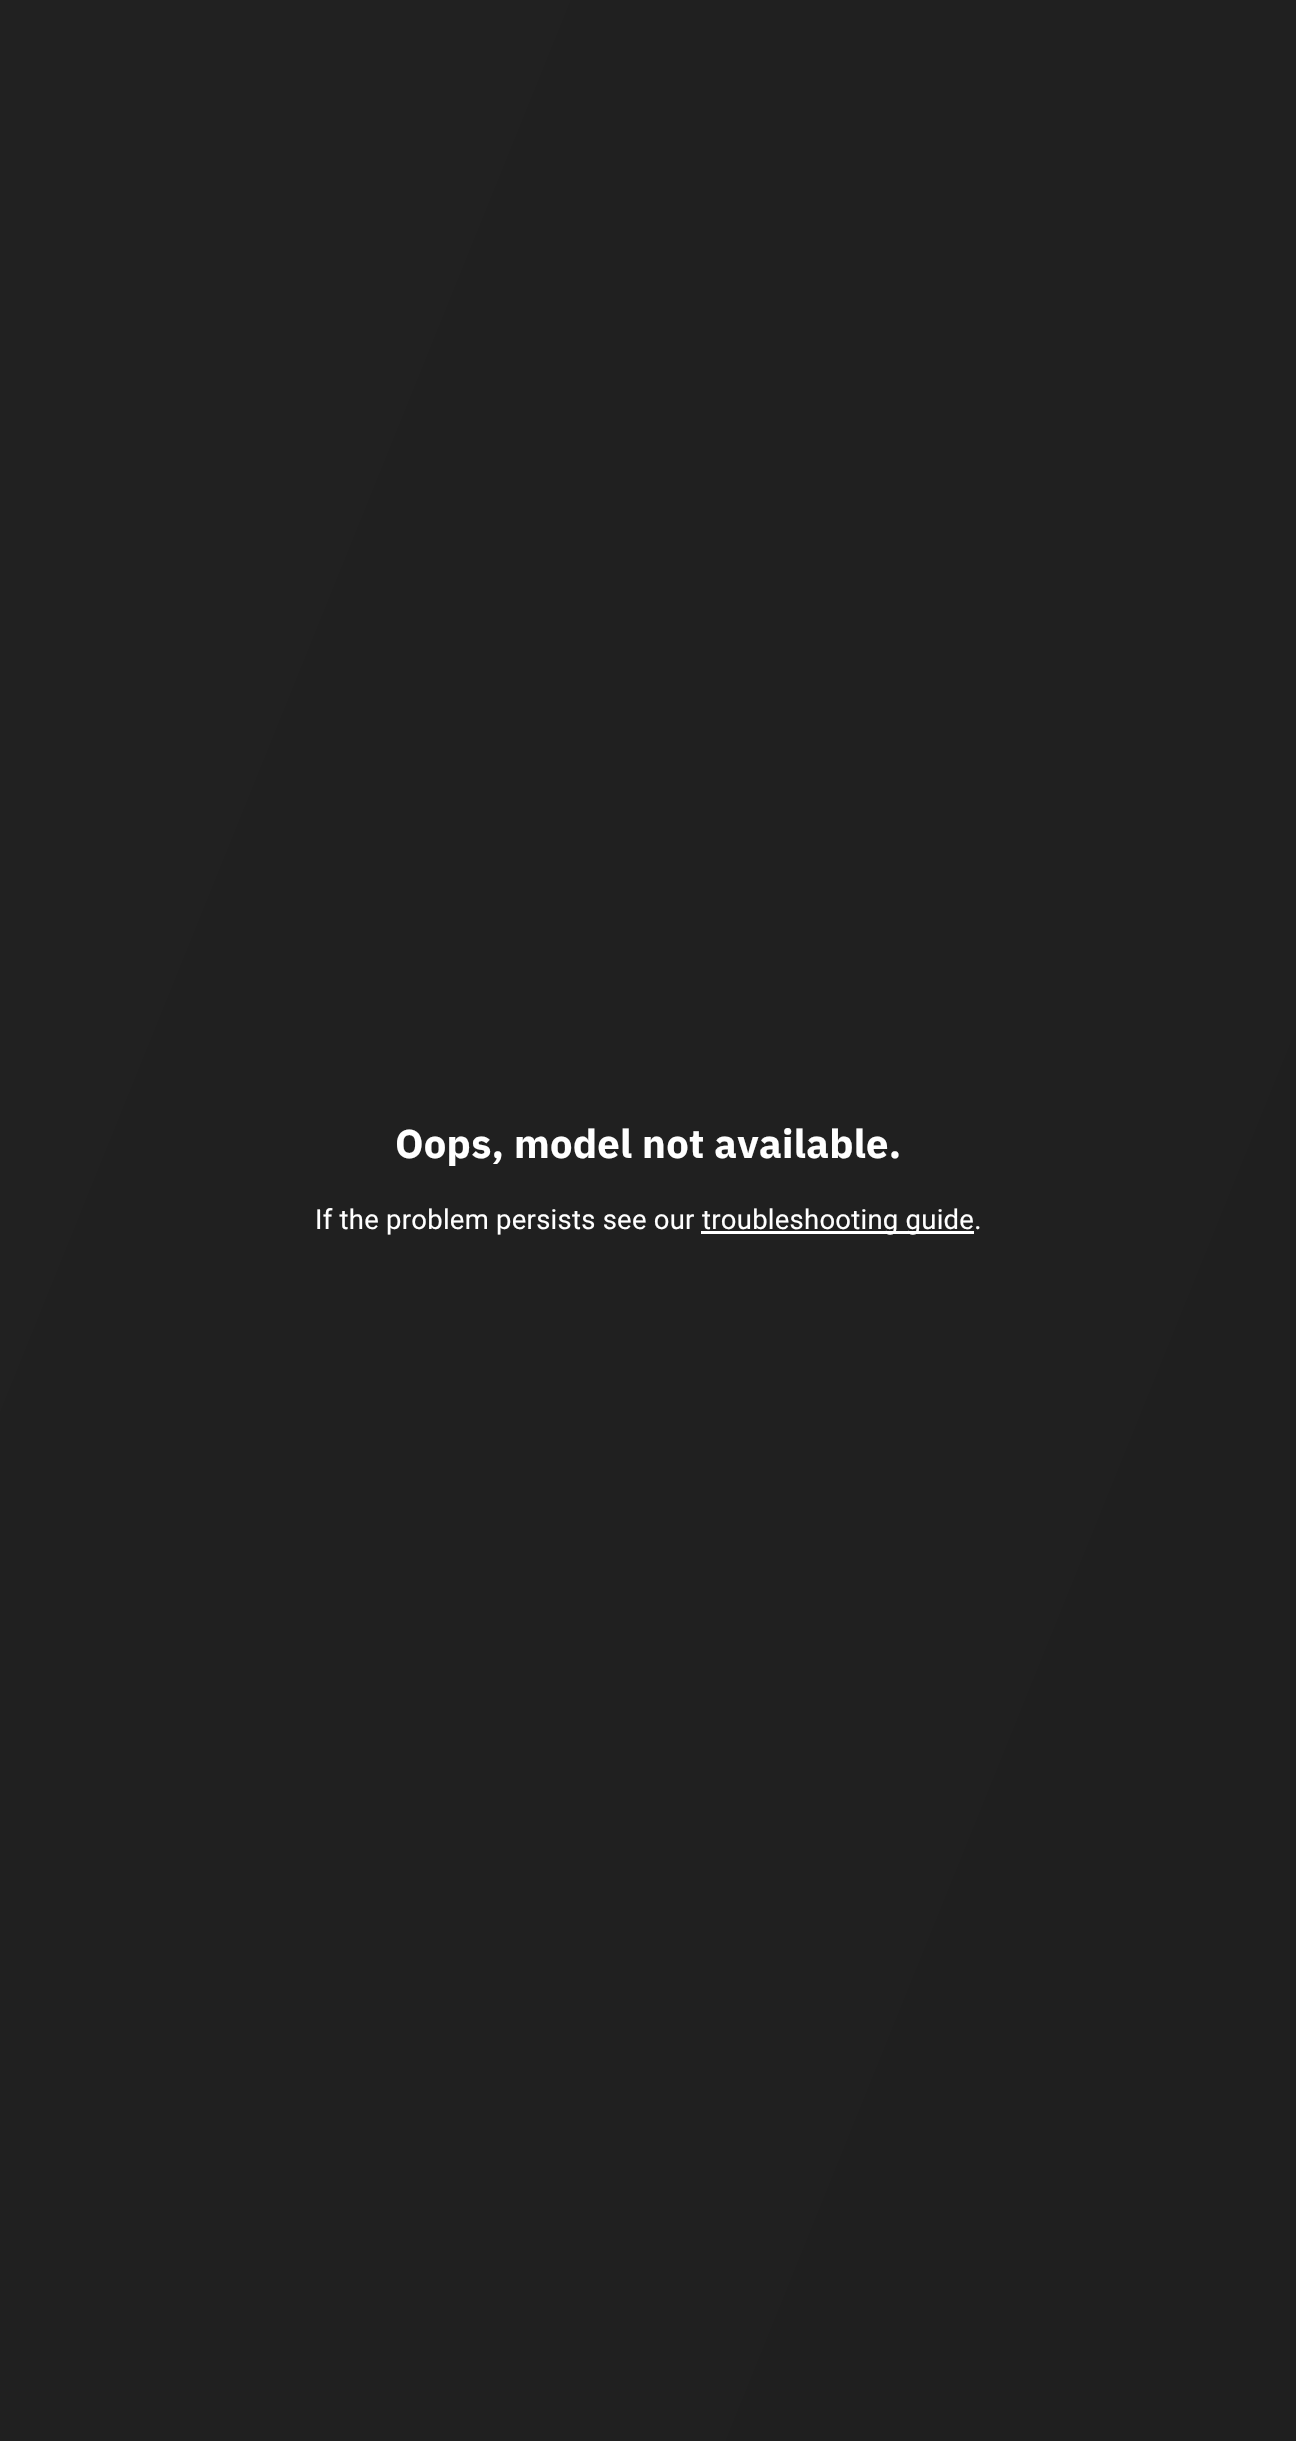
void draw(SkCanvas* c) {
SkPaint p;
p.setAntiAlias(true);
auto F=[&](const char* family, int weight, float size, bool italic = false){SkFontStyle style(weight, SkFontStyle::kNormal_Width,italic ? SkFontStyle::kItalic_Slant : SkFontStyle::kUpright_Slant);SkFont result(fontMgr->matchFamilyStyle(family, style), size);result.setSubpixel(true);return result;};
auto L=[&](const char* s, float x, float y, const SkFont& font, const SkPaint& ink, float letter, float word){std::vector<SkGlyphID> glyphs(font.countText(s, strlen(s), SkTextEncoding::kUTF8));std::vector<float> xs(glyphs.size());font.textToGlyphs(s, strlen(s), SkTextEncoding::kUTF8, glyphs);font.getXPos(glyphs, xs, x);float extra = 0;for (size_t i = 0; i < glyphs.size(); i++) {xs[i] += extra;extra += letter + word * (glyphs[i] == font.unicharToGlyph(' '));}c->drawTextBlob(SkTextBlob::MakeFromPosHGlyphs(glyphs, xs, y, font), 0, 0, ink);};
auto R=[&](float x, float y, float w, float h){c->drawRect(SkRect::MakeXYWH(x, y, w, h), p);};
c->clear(0xffffffff);
{
const SkColor colors[] = {0xff212121,0xff1f1f1f};
const float stops[] = {0,1};
const SkPoint ends[] = {{-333,824}, {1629,1617}};
p.setShader(SkGradientShader::MakeLinear(ends, colors, stops, 2, SkTileMode::kClamp));
p.setAlpha(255);
}
R(0,0,1296,2441);
auto f1 = F("IBM Plex Sans",700,40);
p.setShader(nullptr);
p.setColor(0xffffffff);
L("Oops, model not available.",395,1158,f1,p,.25,0);
auto f2 = F("Roboto",400,27.5);
L("If the problem persists see our",315,1229,f2,p,.25,0);
R(701,1231,273,3);
L("troubleshooting guide.",702,1229,f2,p,.25,0);
}
